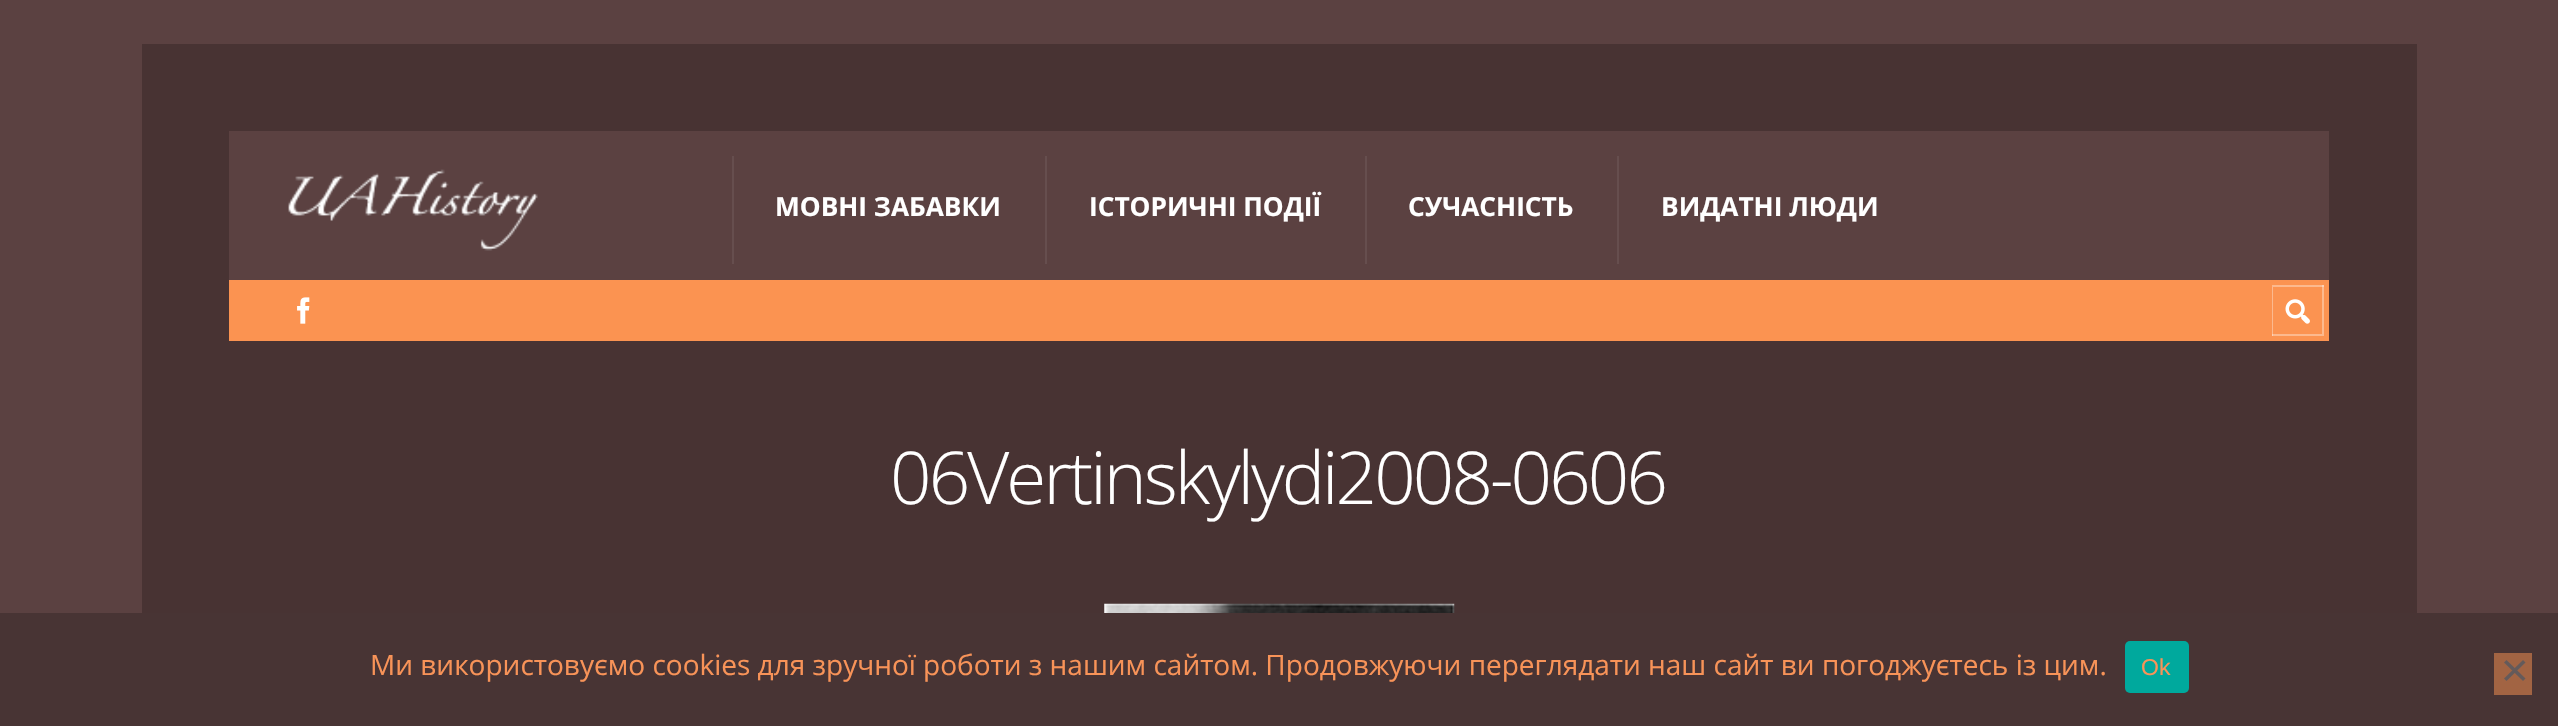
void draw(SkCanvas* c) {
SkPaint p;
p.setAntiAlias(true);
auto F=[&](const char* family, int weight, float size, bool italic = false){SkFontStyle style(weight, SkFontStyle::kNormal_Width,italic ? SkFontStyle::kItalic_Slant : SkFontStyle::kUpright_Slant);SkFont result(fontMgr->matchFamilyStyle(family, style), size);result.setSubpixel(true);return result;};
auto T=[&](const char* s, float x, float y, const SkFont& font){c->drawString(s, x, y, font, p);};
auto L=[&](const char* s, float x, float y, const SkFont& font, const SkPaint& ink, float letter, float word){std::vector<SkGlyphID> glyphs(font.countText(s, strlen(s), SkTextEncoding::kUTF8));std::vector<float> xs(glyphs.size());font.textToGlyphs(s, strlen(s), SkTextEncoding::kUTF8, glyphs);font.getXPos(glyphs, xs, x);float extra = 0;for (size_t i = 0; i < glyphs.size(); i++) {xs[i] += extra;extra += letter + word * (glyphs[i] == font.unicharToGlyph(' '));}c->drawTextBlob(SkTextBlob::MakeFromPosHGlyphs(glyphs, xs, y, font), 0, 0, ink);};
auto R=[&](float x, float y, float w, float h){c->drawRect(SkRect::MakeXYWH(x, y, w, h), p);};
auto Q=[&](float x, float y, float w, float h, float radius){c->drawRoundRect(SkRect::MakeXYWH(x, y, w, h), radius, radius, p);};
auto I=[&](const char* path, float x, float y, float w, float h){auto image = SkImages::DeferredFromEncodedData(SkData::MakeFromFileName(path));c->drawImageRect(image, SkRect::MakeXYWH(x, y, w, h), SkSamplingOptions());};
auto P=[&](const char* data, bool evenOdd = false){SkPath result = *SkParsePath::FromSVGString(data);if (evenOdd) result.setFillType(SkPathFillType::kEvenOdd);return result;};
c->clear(0xff5b4141);
p.setColor(0xff483333);
R(142,44,2275,569);
p.setColor(0xff5b4141);
R(229,131,2100,149);
I("1.png",288,169,250,82);
p.setColor(0xff664e4e);
R(732,156,2,108);
auto f1 = F("Open Sans",700,26.25);
p.setColor(0xffffffff);
T("МОВНІ ЗАБАВКИ",775,216,f1);
p.setColor(0xff664e4e);
R(1045,156,2,108);
p.setColor(0xffffffff);
T("ІСТОРИЧНІ ПОДІЇ",1089,216,f1);
p.setColor(0xff664e4e);
R(1365,156,2,108);
p.setColor(0xffffffff);
T("СУЧАСНІСТЬ",1408,216,f1);
p.setColor(0xff664e4e);
R(1617,156,2,108);
p.setColor(0xffffffff);
T("ВИДАТНІ ЛЮДИ",1661,216,f1);
p.setColor(0xfffb9351);
R(229,280,2100,61);
I("2.png",297,297,13,27);
c->save();
c->clipRect(SkRect::MakeXYWH(2272,285,52,51));
p.setColor(0xfffcb98e);
c->drawPath(P("M2098 112h399v397h-399zm172 172h52v50h-52z",true),p);
p.setColor(0x59ffffff);
c->drawPath(P("M2098 112h399v397h-399zm175 175h53v51h-53z",true),p);
c->restore();
I("3.png",2285,299,25,25);
auto f2 = F("Open Sans",300,72.75);
p.setColor(0xffffffff);
L("06Vertinskylydi2008-0606",890,504,f2,p,-2.9,0);
I("4.png",1104,603,351,10);
p.setColor(0xff483434);
R(0,613,2558,113);
auto f3 = F("Open Sans",400,28);
p.setColor(0xfff89358);
T("Ми використовуємо cookies для зручної роботи з нашим сайтом. Продовжуючи переглядати наш сайт ви погоджуєтесь із цим.",370,675,f3);
p.setColor(0xff00a99d);
Q(2125,641,64,52,5);
auto f4 = F("Liberation Sans",400,23);
p.setColor(0xfff89358);
T("Ok",2141,675,f4);
p.setColor(0xffa26443);
R(2494,653,38,42);
p.setColor(0xff645a5a);
c->drawPath(P("M2523 660l2.5 2.5l-19 18.5l-2.5-2.5z"),p);
c->drawPath(P("M2504 662.5l2.5-2.5l19 18.5l-2.5 2.5z"),p);
}
